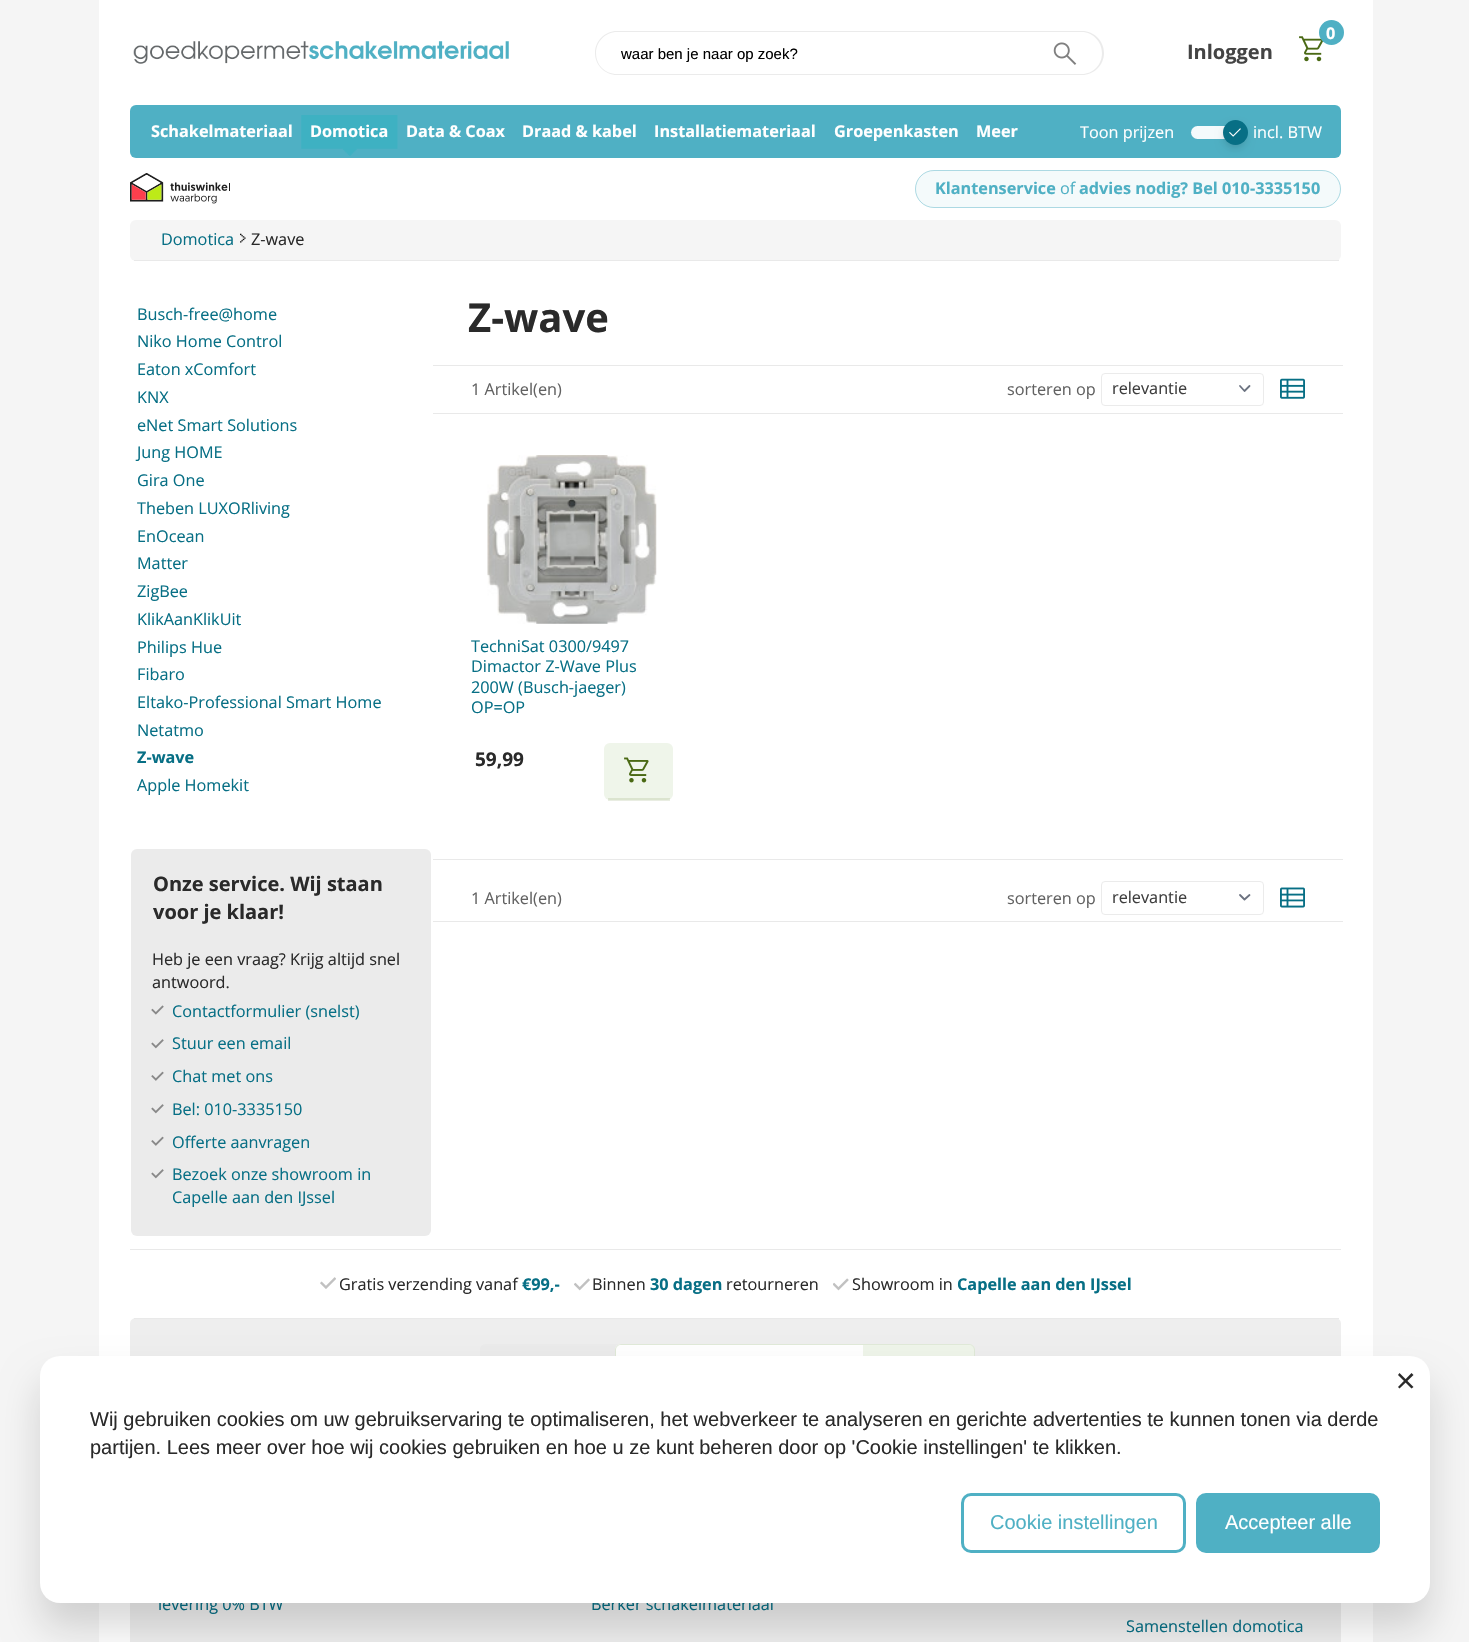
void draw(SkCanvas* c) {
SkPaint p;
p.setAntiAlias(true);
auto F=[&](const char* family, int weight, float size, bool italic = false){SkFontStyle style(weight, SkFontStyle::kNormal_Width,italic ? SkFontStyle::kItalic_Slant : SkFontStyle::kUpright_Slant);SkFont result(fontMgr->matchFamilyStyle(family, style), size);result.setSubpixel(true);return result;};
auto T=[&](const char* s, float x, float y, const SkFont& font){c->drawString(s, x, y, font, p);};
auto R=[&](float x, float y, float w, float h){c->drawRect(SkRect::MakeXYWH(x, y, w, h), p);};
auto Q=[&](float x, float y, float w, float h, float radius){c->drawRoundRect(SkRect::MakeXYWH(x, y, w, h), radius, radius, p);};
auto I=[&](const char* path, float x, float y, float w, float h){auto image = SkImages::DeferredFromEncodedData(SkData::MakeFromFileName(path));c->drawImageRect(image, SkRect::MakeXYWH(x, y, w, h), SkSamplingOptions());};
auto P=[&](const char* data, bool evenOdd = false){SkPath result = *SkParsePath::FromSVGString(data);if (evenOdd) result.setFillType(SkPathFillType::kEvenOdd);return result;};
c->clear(0xfff5f5f5);
p.setColor(0xffffffff);
R(99,0,1274,1642);
I("1.png",133,41,376,23);
p.setColor(0xffebebeb);
c->drawPath(P("M617 31h404v44h-404c-12 0-22-10-22-22c0-12 10-22 22-22zm0 1h404v42h-404c-12 0-21-9-21-21c0-11 9-21 21-21z",true),p);
auto f1 = F("Liberation Sans",400,15);
p.setColor(0xff000000);
T("waar ben je naar op zoek?",621,59,f1);
p.setColor(0xffebebeb);
c->drawPath(P("M1021 31h61c12 0 22 10 22 22c0 12-10 22-22 22h-61zm0 1h61c11 0 20 10 20 21c0 12-9 21-20 21h-61z",true),p);
I("2.png",1053,42,24,23);
I("3.png",1299,36,25,26);
p.setColor(0xff4fb0c4);
c->drawCircle(1331.5,32.5,12.5,p);
auto f2 = F("Open Sans",700,16.25);
p.setColor(0xffffffff);
T("0",1326,39,f2);
auto f3 = F("Open Sans",700,20);
p.setColor(0xff444444);
T("Inloggen",1187,59,f3);
p.setColor(0xff4fb0c4);
Q(130,105,1211,53,6);
p.setColor(0xffffffff);
T("Schakelmateriaal",151,137,f2);
I("4.png",301,115,97,41);
T("Domotica",310,137,f2);
T("Data & Coax",406,137,f2);
T("Draad & kabel",522,137,f2);
T("Installatiemateriaal",654,137,f2);
T("Groepenkasten",834,137,f2);
T("Meer",976,137,f2);
auto f4 = F("Open Sans",400,16.25);
T("Toon prijzen",1080,138,f4);
p.setColor(0xfff4fafc);
Q(1191,126,44,13,6.5);
p.setColor(0x0f000000);
p.setMaskFilter(SkMaskFilter::MakeBlur(kNormal_SkBlurStyle, 2.5));
c->drawRoundRect(SkRect::MakeXYWH(1224,124,22,22),11,11,p);
p.setMaskFilter(nullptr);
p.setColor(0x1a000000);
p.setMaskFilter(SkMaskFilter::MakeBlur(kNormal_SkBlurStyle, 4));
c->drawRoundRect(SkRect::MakeXYWH(1224,126,22,23),11,11,p);
p.setMaskFilter(nullptr);
p.setColor(0xff076f85);
c->drawCircle(1235.5,132.5,12.5,p);
I("5.png",1229,128,12,9);
p.setColor(0xffffffff);
T("incl. BTW",1253,138,f4);
I("6.png",130,173,100,31);
p.setColor(0xfff4fafb);
Q(915,170,426,38,19);
p.setStroke(true);
p.setStrokeWidth(1);
p.setColor(0x704fb0c4);
c->drawRoundRect(SkRect::MakeXYWH(915.5,170.5,425,37),18.5,18.5,p);
p.setStroke(false);
p.setColor(0xff4fb0c4);
T("Klantenservice",935,194,f2);
T("of",1060,194,f4);
T("advies nodig? Bel 010-3335150",1079,194,f2);
p.setColor(0xfff5f5f5);
Q(130,220,1211,41,6);
p.setColor(0xffe9e9e9);
R(134,260,1205,1);
p.setColor(0xff076f85);
T("Domotica",161,245,f4);
I("7.png",240,233,6,10);
p.setColor(0xff2a2a2a);
T("Z-wave",251,245,f4);
p.setColor(0xff076f85);
T("Busch-free@home",137,320,f4);
T("Niko Home Control",137,347,f4);
T("Eaton xComfort",137,375,f4);
T("KNX",137,403,f4);
T("eNet Smart Solutions",137,431,f4);
T("Jung HOME",137,458,f4);
T("Gira One",137,486,f4);
T("Theben LUXORliving",137,514,f4);
T("EnOcean",137,542,f4);
T("Matter",137,569,f4);
T("ZigBee",137,597,f4);
T("KlikAanKlikUit",137,625,f4);
T("Philips Hue",137,653,f4);
T("Fibaro",137,680,f4);
T("Eltako-Professional Smart Home",137,708,f4);
T("Netatmo",137,736,f4);
T("Z-wave",137,763,f2);
T("Apple Homekit",137,791,f4);
p.setColor(0xffebebeb);
Q(131,849,300,387,6);
p.setColor(0xff2a2a2a);
T("Onze service. Wij staan",153,891,f3);
T("voor je klaar!",153,919,f3);
T("Heb je een vraag? Krijg altijd snel",152,965,f4);
T("antwoord.",152,988,f4);
I("8.png",151,1005,13,10);
p.setColor(0xff076f85);
T("Contactformulier (snelst)",172,1017,f4);
I("9.png",151,1039,13,10);
T("Stuur een email",172,1049,f4);
I("10.png",151,1071,13,10);
T("Chat met ons",172,1082,f4);
I("9.png",151,1104,13,10);
T("Bel: 010-3335150",172,1115,f4);
I("10.png",151,1136,13,10);
T("Offerte aanvragen",172,1148,f4);
I("9.png",151,1169,13,10);
T("Bezoek onze showroom in",172,1180,f4);
T("Capelle aan den IJssel",172,1203,f4);
auto f5 = F("Open Sans",700,40);
p.setColor(0xff2a2a2a);
T("Z-wave",468,332,f5);
p.setColor(0xffe9e9e9);
R(433,365,910,1);
R(433,413,910,1);
p.setColor(0xff626262);
T("1 Artikel(en)",471,395,f4);
T("sorteren op",1007,395,f4);
p.setStroke(true);
p.setStrokeWidth(1.8);
p.setStrokeCap(SkPaint::kRound_Cap);
p.setStrokeJoin(SkPaint::kRound_Join);
p.setColor(0xff6b7280);
c->drawPath(P("M1240 386l4.5 5l5-5"),p);
p.setStrokeWidth(1);
p.setStrokeCap(SkPaint::kButt_Cap);
p.setStrokeJoin(SkPaint::kMiter_Join);
p.setColor(0xffebebeb);
c->drawRoundRect(SkRect::MakeXYWH(1101.5,373.5,162,32),3.5,3.5,p);
p.setStroke(false);
p.setColor(0xff3e3e3e);
T("relevantie",1112,394,f4);
I("11.png",1280,378,25,21);
I("12.png",487,455,170,169);
p.setColor(0xff076f85);
T("TechniSat 0300/9497",471,652,f4);
T("Dimactor Z-Wave Plus",471,672,f4);
T("200W (Busch-jaeger)",471,693,f4);
T("OP=OP",471,713,f4);
auto f6 = F("Open Sans",700,19);
p.setColor(0xff2a2a2a);
T("59,99",475,766,f6);
p.setColor(0xffeff5ea);
Q(604,743,69,57,6);
p.setColor(0x1f4a6914);
R(608,798,62,3);
I("13.png",624,757,25,26);
p.setColor(0xffe9e9e9);
R(433,859,910,1);
R(433,921,910,1);
p.setColor(0xff626262);
T("1 Artikel(en)",471,904,f4);
T("sorteren op",1007,904,f4);
p.setStroke(true);
p.setStrokeWidth(1.8);
p.setStrokeCap(SkPaint::kRound_Cap);
p.setStrokeJoin(SkPaint::kRound_Join);
p.setColor(0xff6b7280);
c->drawPath(P("M1240 895l4.5 4.5l5-4.5"),p);
p.setStrokeWidth(1);
p.setStrokeCap(SkPaint::kButt_Cap);
p.setStrokeJoin(SkPaint::kMiter_Join);
p.setColor(0xffebebeb);
c->drawRoundRect(SkRect::MakeXYWH(1101.5,881.5,162,33),3.5,3.5,p);
p.setStroke(false);
p.setColor(0xff3e3e3e);
T("relevantie",1112,903,f4);
I("14.png",1280,887,25,21);
p.setColor(0xffe9e9e9);
R(130,1249,1211,1);
I("15.png",320,1277,16,12);
p.setColor(0xff2a2a2a);
T("Gratis verzending vanaf",339,1290,f4);
p.setColor(0xff076f85);
T("€99,-",522,1290,f2);
I("16.png",574,1278,16,13);
p.setColor(0xff2a2a2a);
T("Binnen",592,1290,f4);
p.setColor(0xff076f85);
T("30 dagen",650,1290,f2);
p.setColor(0xff2a2a2a);
T("retourneren",726,1290,f4);
I("17.png",833,1278,16,13);
T("Showroom in",852,1290,f4);
p.setColor(0xff076f85);
T("Capelle aan den IJssel",957,1290,f2);
p.setColor(0xffeeeeee);
c->drawPath(P("M136 1318h1199c3.5 0 6 2.5 6 6v79h-1211v-79c0-3.5 2.5-6 6-6z"),p);
p.setColor(0xffe9e9e9);
R(134,1318,1205,1);
p.setColor(0xffebebeb);
Q(480,1344,495,40,6);
p.setColor(0xffffffff);
c->drawPath(P("M621 1344h242v40h-242c-3.5 0-6-2.5-6-6v-28c0-3.5 2.5-6 6-6z"),p);
p.setColor(0xffe0e9d8);
c->drawPath(P("M621 1344h241v40h-241c-3 0-6-3-6-6v-28c0-3 3-6 6-6zm0 1h241v37h-241c-3 0-5-2-5-4v-28c0-3 2-5 5-5z",true),p);
p.setColor(0xffeff5ea);
c->drawPath(P("M863 1344h106c3.5 0 6 2.5 6 6v28c0 3.5-2.5 6-6 6h-106z"),p);
p.setColor(0xffe0e9d8);
c->drawPath(P("M862 1344h107c3 0 6 3 6 6v28c0 3-3 6-6 6h-107zm0 1h107c3 0 5 2 5 5v28c0 2-2 4-5 4h-107z",true),p);
p.setColor(0xffeeeeee);
R(130,1603,1211,39);
p.setColor(0xff076f85);
T("levering 0% BTW",158,1610,f4);
T("Berker schakelmateriaal",591,1610,f4);
T("Samenstellen domotica",1126,1632,f4);
p.setColor(0x26000000);
p.setMaskFilter(SkMaskFilter::MakeBlur(kNormal_SkBlurStyle, 19));
c->drawRoundRect(SkRect::MakeXYWH(40,1381,1390,247),20,20,p);
p.setMaskFilter(nullptr);
p.setColor(0xffffffff);
Q(40,1356,1390,247,20);
auto f7 = F("Liberation Sans",400,20);
p.setColor(0xff2a2a2a);
T("Wij gebruiken cookies om uw gebruikservaring te optimaliseren, het webverkeer te analyseren en gerichte advertenties te kunnen tonen via derde",90,1426,f7);
T("partijen. Lees meer over hoe wij cookies gebruiken en hoe u ze kunt beheren door op 'Cookie instellingen' te klikken.",90,1454,f7);
c->drawPath(P("M1411.5 1373l2 2l-14 13.5l-1.5-1.5z"),p);
c->drawPath(P("M1399.5 1373l14 14l-2 1.5l-13.5-13.5z"),p);
p.setStroke(true);
p.setStrokeWidth(3);
p.setColor(0xff4fb0c4);
c->drawRoundRect(SkRect::MakeXYWH(962.5,1494.5,222,57),8.5,8.5,p);
p.setStroke(false);
T("Cookie instellingen",990,1529,f7);
c->drawRoundRect(SkRect::MakeXYWH(1197.5,1494.5,181,57),8.5,8.5,p);
p.setStroke(true);
c->drawRoundRect(SkRect::MakeXYWH(1197.5,1494.5,181,57),8.5,8.5,p);
p.setStroke(false);
p.setColor(0xffffffff);
T("Accepteer alle",1225,1529,f7);
}
